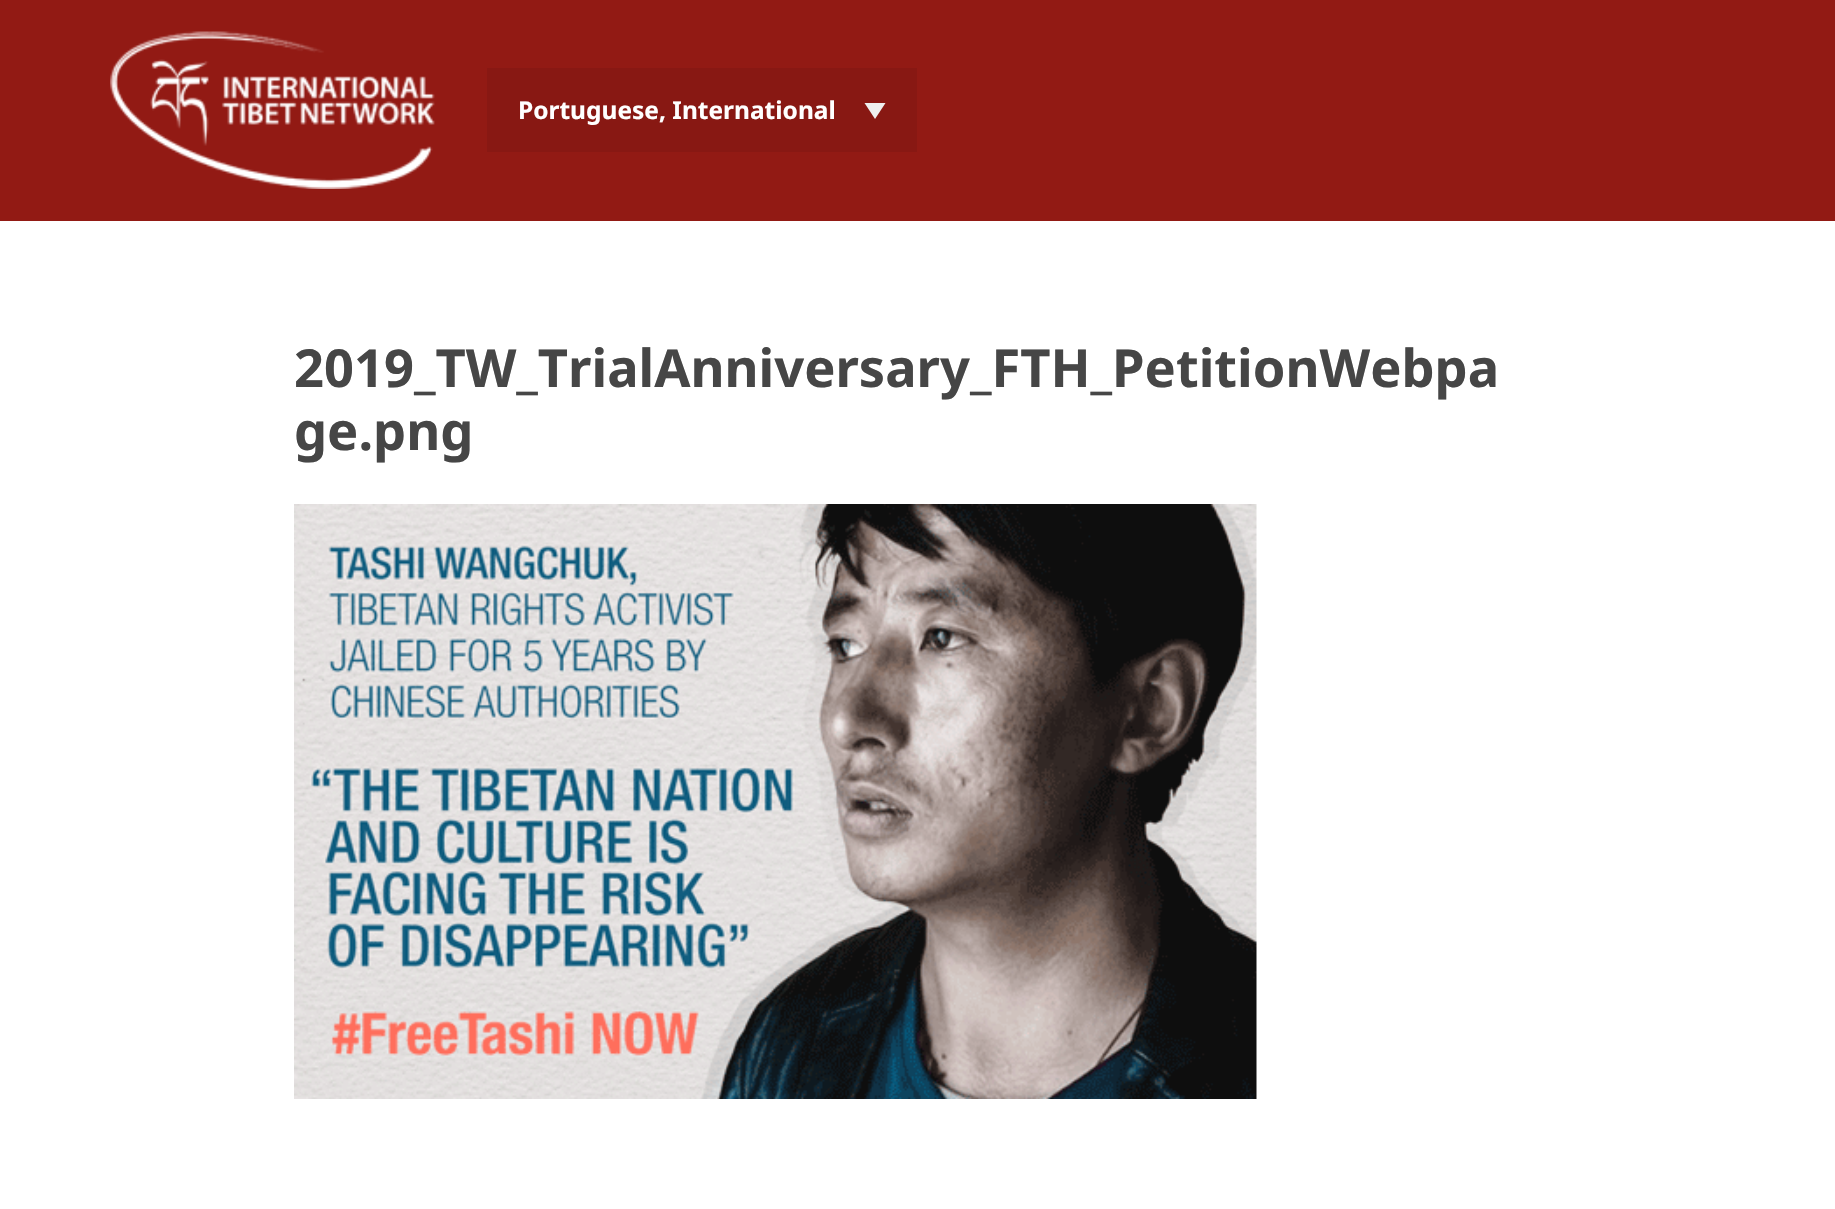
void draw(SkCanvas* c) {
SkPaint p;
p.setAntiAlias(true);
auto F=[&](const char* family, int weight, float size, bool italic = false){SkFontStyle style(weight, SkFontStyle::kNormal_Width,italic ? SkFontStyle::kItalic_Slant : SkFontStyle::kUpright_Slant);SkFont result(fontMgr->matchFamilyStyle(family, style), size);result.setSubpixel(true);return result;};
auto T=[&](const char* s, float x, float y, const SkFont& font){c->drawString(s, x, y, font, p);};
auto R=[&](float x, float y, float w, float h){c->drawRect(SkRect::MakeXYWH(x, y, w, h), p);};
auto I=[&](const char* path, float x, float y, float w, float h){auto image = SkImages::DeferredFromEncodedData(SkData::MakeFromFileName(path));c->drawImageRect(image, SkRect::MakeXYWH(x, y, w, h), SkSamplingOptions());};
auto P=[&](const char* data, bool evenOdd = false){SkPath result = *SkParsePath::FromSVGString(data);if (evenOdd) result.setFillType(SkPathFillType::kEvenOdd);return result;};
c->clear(0xffffffff);
p.setColor(0xff921a14);
R(0,0,1835,221);
I("1.png",110,31,325,158);
p.setColor(0xff881813);
R(487,68,430,84);
auto f1 = F("Noto Sans",700,24.5);
p.setColor(0xffffffff);
T("Portuguese, International",518,119,f1);
p.setColor(0xffefefef);
c->drawPath(P("M864.5 103h21l-10.5 16z"),p);
auto f2 = F("Noto Sans",700,52.4);
p.setColor(0xff464646);
T("2019_TW_TrialAnniversary_FTH_PetitionWebpa",294,387,f2);
T("ge.png",294,450,f2);
I("2.png",294,504,963,595);
}
